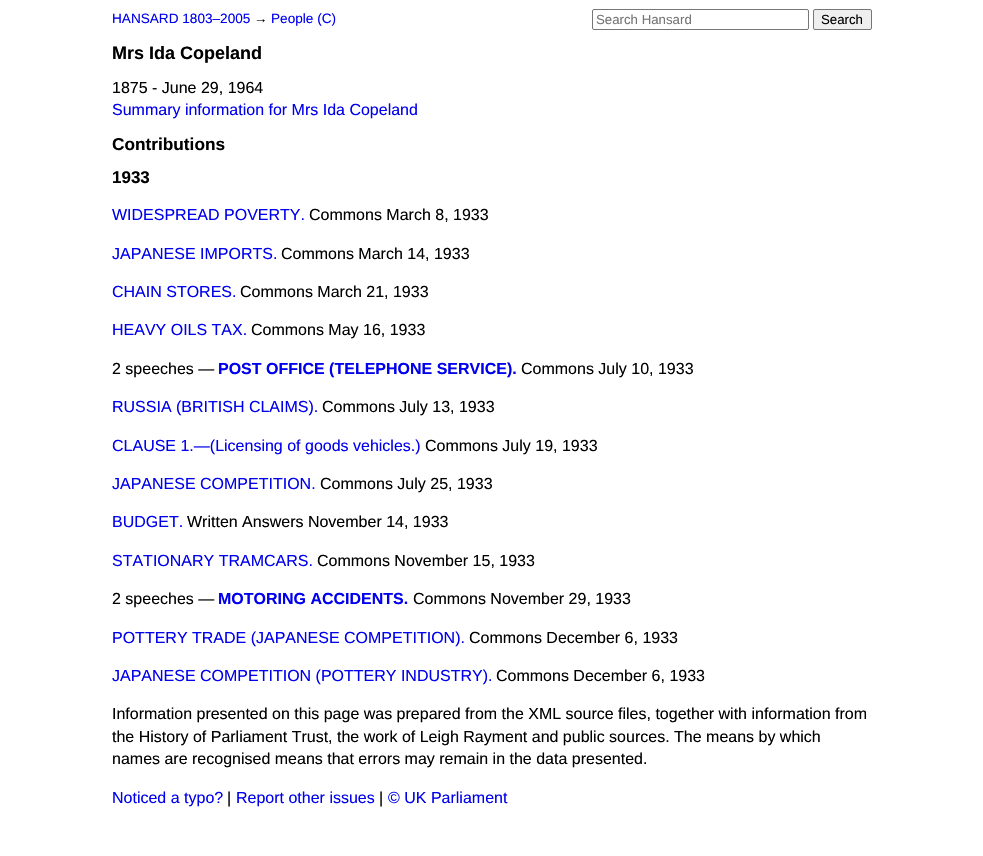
void draw(SkCanvas* c) {
SkPaint p;
p.setAntiAlias(true);
auto F=[&](const char* family, int weight, float size, bool italic = false){SkFontStyle style(weight, SkFontStyle::kNormal_Width,italic ? SkFontStyle::kItalic_Slant : SkFontStyle::kUpright_Slant);SkFont result(fontMgr->matchFamilyStyle(family, style), size);result.setSubpixel(true);return result;};
auto T=[&](const char* s, float x, float y, const SkFont& font){c->drawString(s, x, y, font, p);};
c->clear(0xffffffff);
auto f1 = F("Liberation Sans",400,13.6);
p.setColor(0xff0000ee);
T("HANSARD 1803–2005",112,23,f1);
p.setColor(0xff000000);
T("→",254,23,f1);
p.setColor(0xff0000ee);
T("People (C)",271,23,f1);
p.setStroke(true);
p.setStrokeWidth(1);
p.setColor(0xff767676);
c->drawRoundRect(SkRect::MakeXYWH(592.5,9.5,216,20),1.5,1.5,p);
auto f2 = F("Liberation Sans",400,13.25);
p.setStroke(false);
p.setColor(0xff757575);
T("Search Hansard",596,24,f2);
p.setColor(0xffefefef);
c->drawRoundRect(SkRect::MakeXYWH(813.5,9.5,58,20),1.5,1.5,p);
p.setStroke(true);
p.setColor(0xff767676);
c->drawRoundRect(SkRect::MakeXYWH(813.5,9.5,58,20),1.5,1.5,p);
p.setStroke(false);
p.setColor(0xff000000);
T("Search",821,24,f2);
auto f3 = F("Liberation Sans",700,18);
T("Mrs Ida Copeland",112,59,f3);
auto f4 = F("Liberation Sans",400,16);
T("1875 - June 29, 1964",112,93,f4);
p.setColor(0xff0000ee);
T("Summary information for Mrs Ida Copeland",112,115,f4);
auto f5 = F("Liberation Sans",700,17.25);
p.setColor(0xff000000);
T("Contributions",112,150,f5);
auto f6 = F("Liberation Sans",700,17);
T("1933",112,183,f6);
p.setColor(0xff0000ee);
T("WIDESPREAD POVERTY.",112,220,f4);
p.setColor(0xff000000);
T("Commons March 8, 1933",309,220,f4);
p.setColor(0xff0000ee);
T("JAPANESE IMPORTS.",112,259,f4);
p.setColor(0xff000000);
T("Commons March 14, 1933",281,259,f4);
p.setColor(0xff0000ee);
T("CHAIN STORES.",112,297,f4);
p.setColor(0xff000000);
T("Commons March 21, 1933",240,297,f4);
p.setColor(0xff0000ee);
T("HEAVY OILS TAX.",112,335,f4);
p.setColor(0xff000000);
T("Commons May 16, 1933",251,335,f4);
T("2 speeches —",112,374,f4);
auto f7 = F("Liberation Sans",700,16);
p.setColor(0xff0000ee);
T("POST OFFICE (TELEPHONE SERVICE).",218,374,f7);
p.setColor(0xff000000);
T("Commons July 10, 1933",521,374,f4);
p.setColor(0xff0000ee);
T("RUSSIA (BRITISH CLAIMS).",112,412,f4);
p.setColor(0xff000000);
T("Commons July 13, 1933",322,412,f4);
p.setColor(0xff0000ee);
T("CLAUSE 1.—(Licensing of goods vehicles.)",112,451,f4);
p.setColor(0xff000000);
T("Commons July 19, 1933",425,451,f4);
p.setColor(0xff0000ee);
T("JAPANESE COMPETITION.",112,489,f4);
p.setColor(0xff000000);
T("Commons July 25, 1933",320,489,f4);
p.setColor(0xff0000ee);
T("BUDGET.",112,527,f4);
p.setColor(0xff000000);
T("Written Answers November 14, 1933",187,527,f4);
p.setColor(0xff0000ee);
T("STATIONARY TRAMCARS.",112,566,f4);
p.setColor(0xff000000);
T("Commons November 15, 1933",317,566,f4);
T("2 speeches —",112,604,f4);
p.setColor(0xff0000ee);
T("MOTORING ACCIDENTS.",218,604,f7);
p.setColor(0xff000000);
T("Commons November 29, 1933",413,604,f4);
p.setColor(0xff0000ee);
T("POTTERY TRADE (JAPANESE COMPETITION).",112,643,f4);
p.setColor(0xff000000);
T("Commons December 6, 1933",469,643,f4);
p.setColor(0xff0000ee);
T("JAPANESE COMPETITION (POTTERY INDUSTRY).",112,681,f4);
p.setColor(0xff000000);
T("Commons December 6, 1933",496,681,f4);
T("Information presented on this page was prepared from the XML source files, together with information from",112,719,f4);
T("the History of Parliament Trust, the work of Leigh Rayment and public sources. The means by which",112,742,f4);
T("names are recognised means that errors may remain in the data presented.",112,764,f4);
p.setColor(0xff0000ee);
T("Noticed a typo?",112,803,f4);
p.setColor(0xff000000);
T("|",227,803,f4);
p.setColor(0xff0000ee);
T("Report other issues",236,803,f4);
p.setColor(0xff000000);
T("|",379,803,f4);
p.setColor(0xff0000ee);
T("© UK Parliament",388,803,f4);
}
